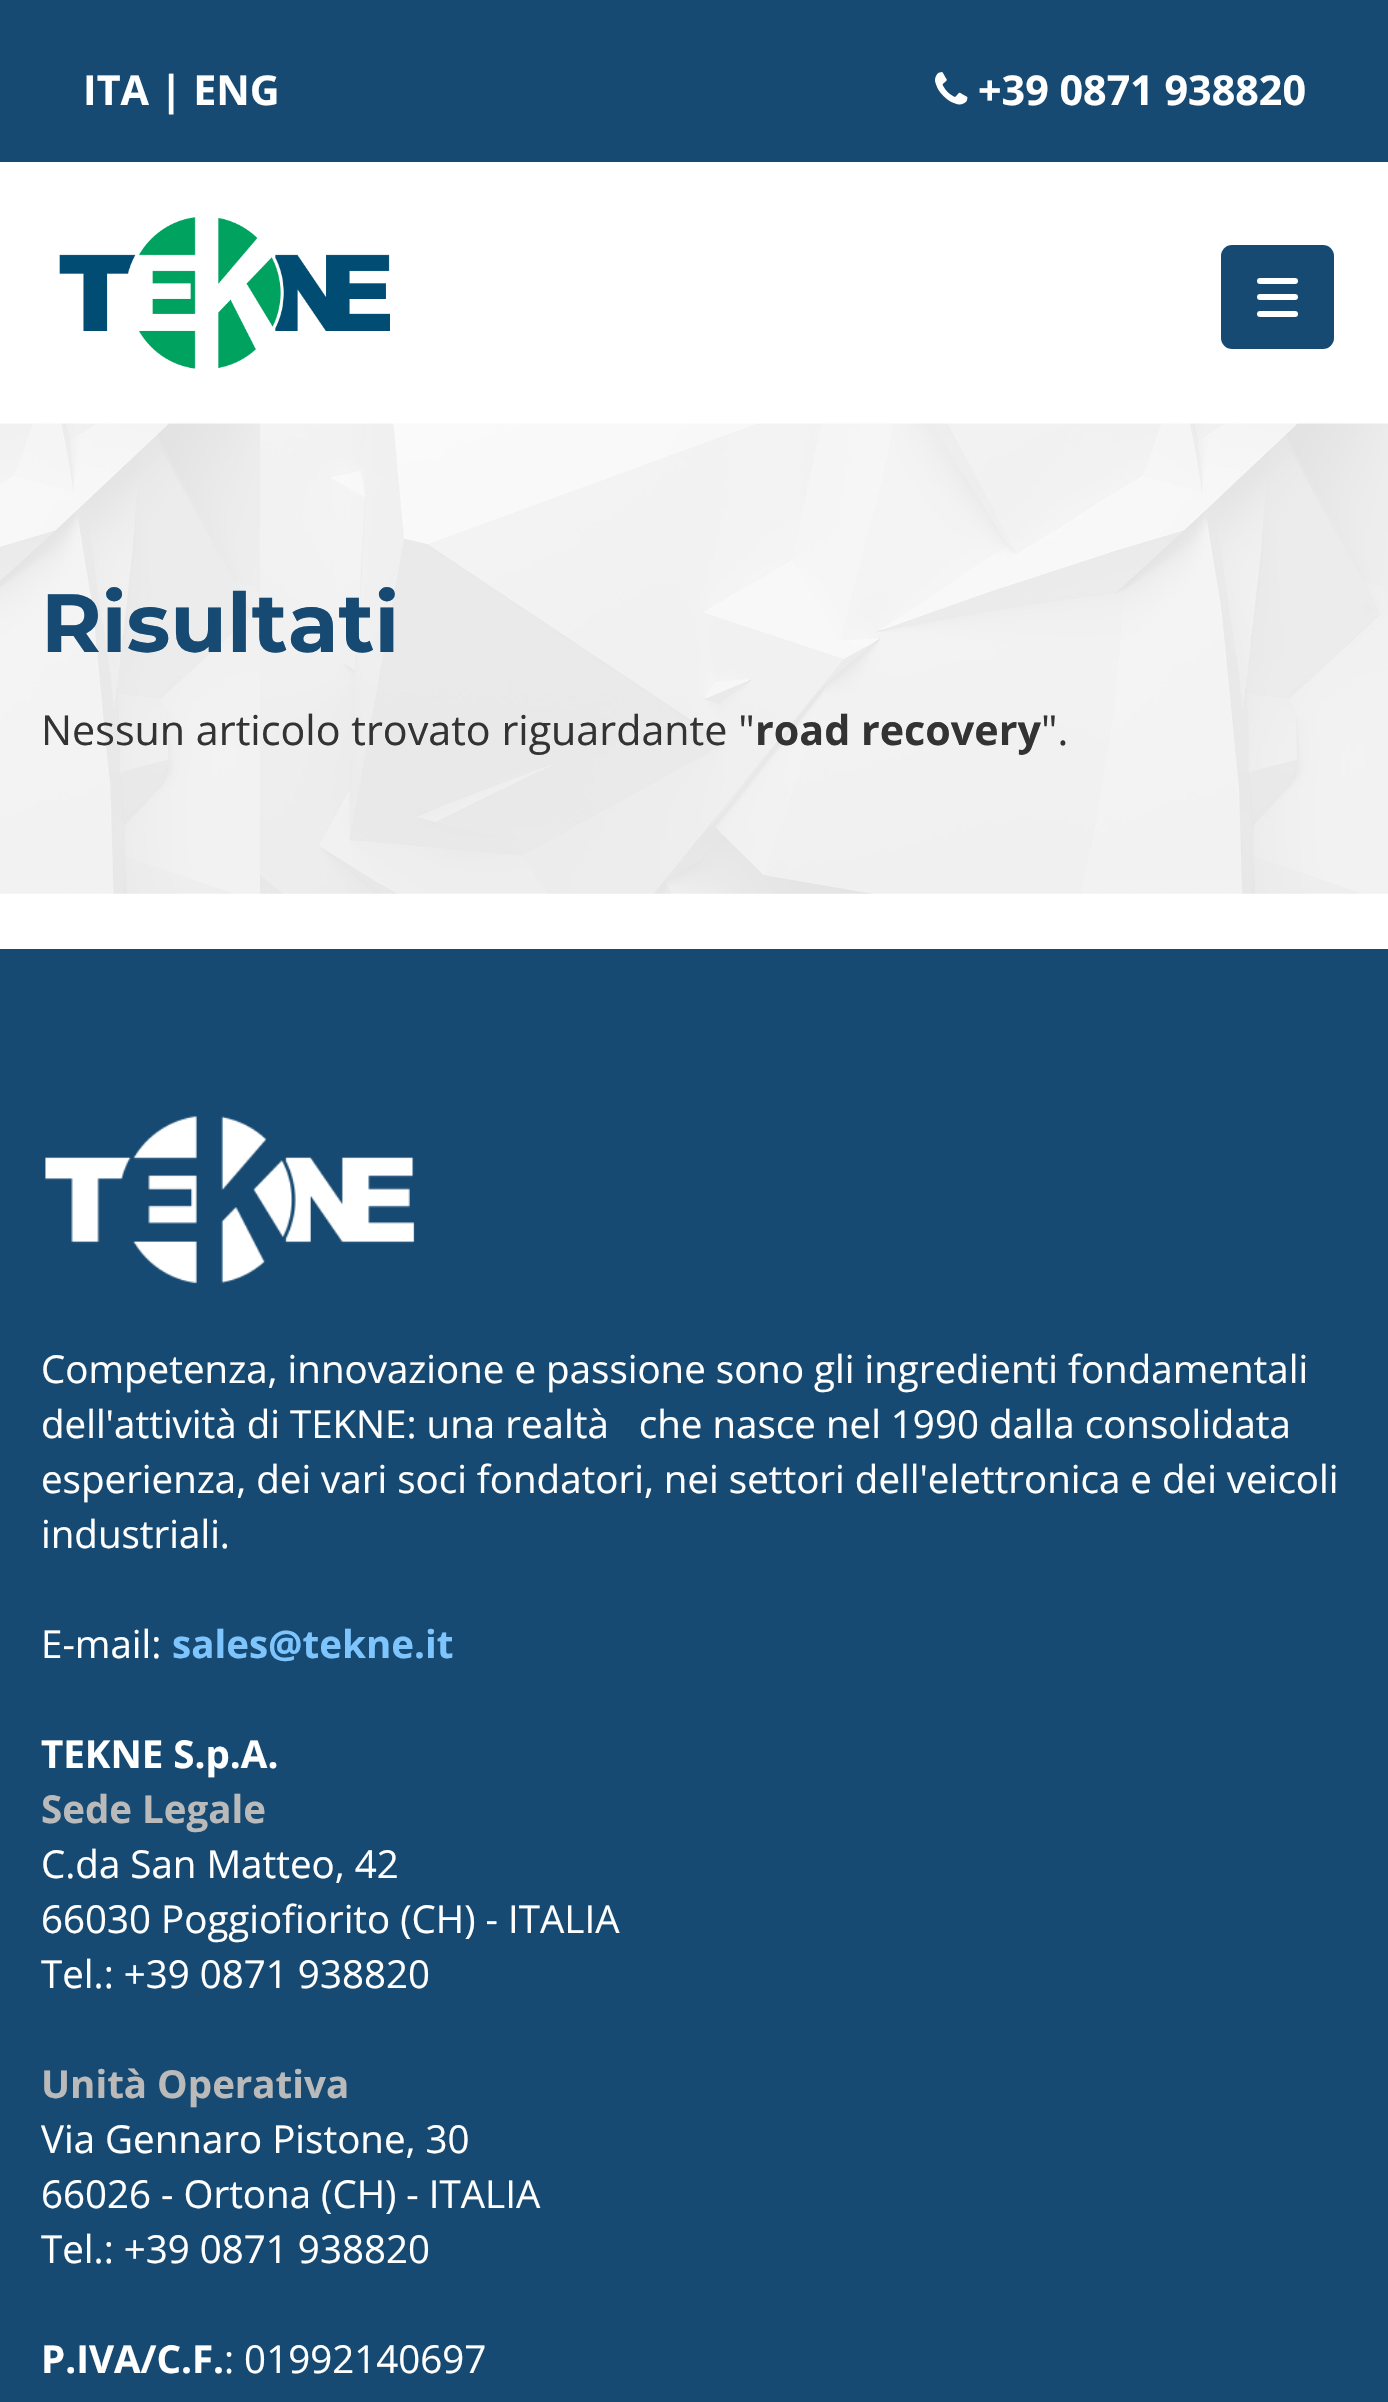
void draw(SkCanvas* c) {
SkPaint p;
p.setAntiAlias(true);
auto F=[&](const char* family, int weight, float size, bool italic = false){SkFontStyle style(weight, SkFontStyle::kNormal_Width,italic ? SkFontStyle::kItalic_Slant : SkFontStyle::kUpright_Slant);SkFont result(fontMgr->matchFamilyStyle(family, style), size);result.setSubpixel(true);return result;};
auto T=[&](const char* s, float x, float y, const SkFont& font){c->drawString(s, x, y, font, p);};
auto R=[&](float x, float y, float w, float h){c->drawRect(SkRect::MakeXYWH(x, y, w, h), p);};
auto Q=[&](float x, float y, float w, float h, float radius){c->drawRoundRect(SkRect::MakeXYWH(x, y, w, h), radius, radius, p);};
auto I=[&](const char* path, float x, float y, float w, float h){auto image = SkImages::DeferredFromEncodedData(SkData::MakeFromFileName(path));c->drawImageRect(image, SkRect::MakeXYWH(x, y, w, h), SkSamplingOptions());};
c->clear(0xffffffff);
p.setColor(0xff174a72);
R(0,0,1388,162);
auto f1 = F("Open Sans",700,41.25);
p.setColor(0xffffffff);
T("ITA | ENG",83,105,f1);
I("1.png",935,72,33,33);
T("+39 0871 938820",978,105,f1);
I("2.png",59,217,331,152);
p.setColor(0xff174a72);
Q(1221,245,113,104,11);
p.setColor(0xffffffff);
Q(1257,278,41,6,3);
Q(1257,294,41,6,3);
Q(1257,311,41,6,3);
I("3.png",0,423,1388,471);
auto f2 = F("Montserrat",700,82.5);
p.setColor(0xff174a72);
T("Risultati",41,652,f2);
auto f3 = F("Open Sans",400,41.25);
p.setColor(0xff333333);
T("Nessun articolo trovato riguardante \"",41,745,f3);
T("road recovery",755,745,f1);
T("\".",1041,745,f3);
p.setColor(0xff174a72);
R(0,949,1388,1453);
I("4.png",45,1116,370,168);
auto f4 = F("Open Sans",400,38.5);
p.setColor(0xffffffff);
T("Competenza, innovazione e passione sono gli ingredienti fondamentali",41,1383,f4);
T("dell'attività di TEKNE: una realtà   che nasce nel 1990 dalla consolidata",41,1438,f4);
T("esperienza, dei vari soci fondatori, nei settori dell'elettronica e dei veicoli",41,1493,f4);
T("industriali.",41,1548,f4);
T("E-mail:",41,1658,f4);
auto f5 = F("Open Sans",700,38.5);
p.setColor(0xff7ec5fe);
T("sales@tekne.it",172,1658,f5);
p.setColor(0xffffffff);
T("TEKNE S.p.A.",41,1768,f5);
p.setColor(0xffbababa);
T("Sede Legale",41,1823,f5);
p.setColor(0xffffffff);
T("C.da San Matteo, 42",41,1878,f4);
T("66030 Poggiofiorito (CH) - ITALIA",41,1933,f4);
T("Tel.: +39 0871 938820",41,1988,f4);
p.setColor(0xffbababa);
T("Unità Operativa",41,2098,f5);
p.setColor(0xffffffff);
T("Via Gennaro Pistone, 30",41,2153,f4);
T("66026 - Ortona (CH) - ITALIA",41,2208,f4);
T("Tel.: +39 0871 938820",41,2263,f4);
T("P.IVA/C.F.",41,2373,f5);
T(": 01992140697",224,2373,f4);
}
